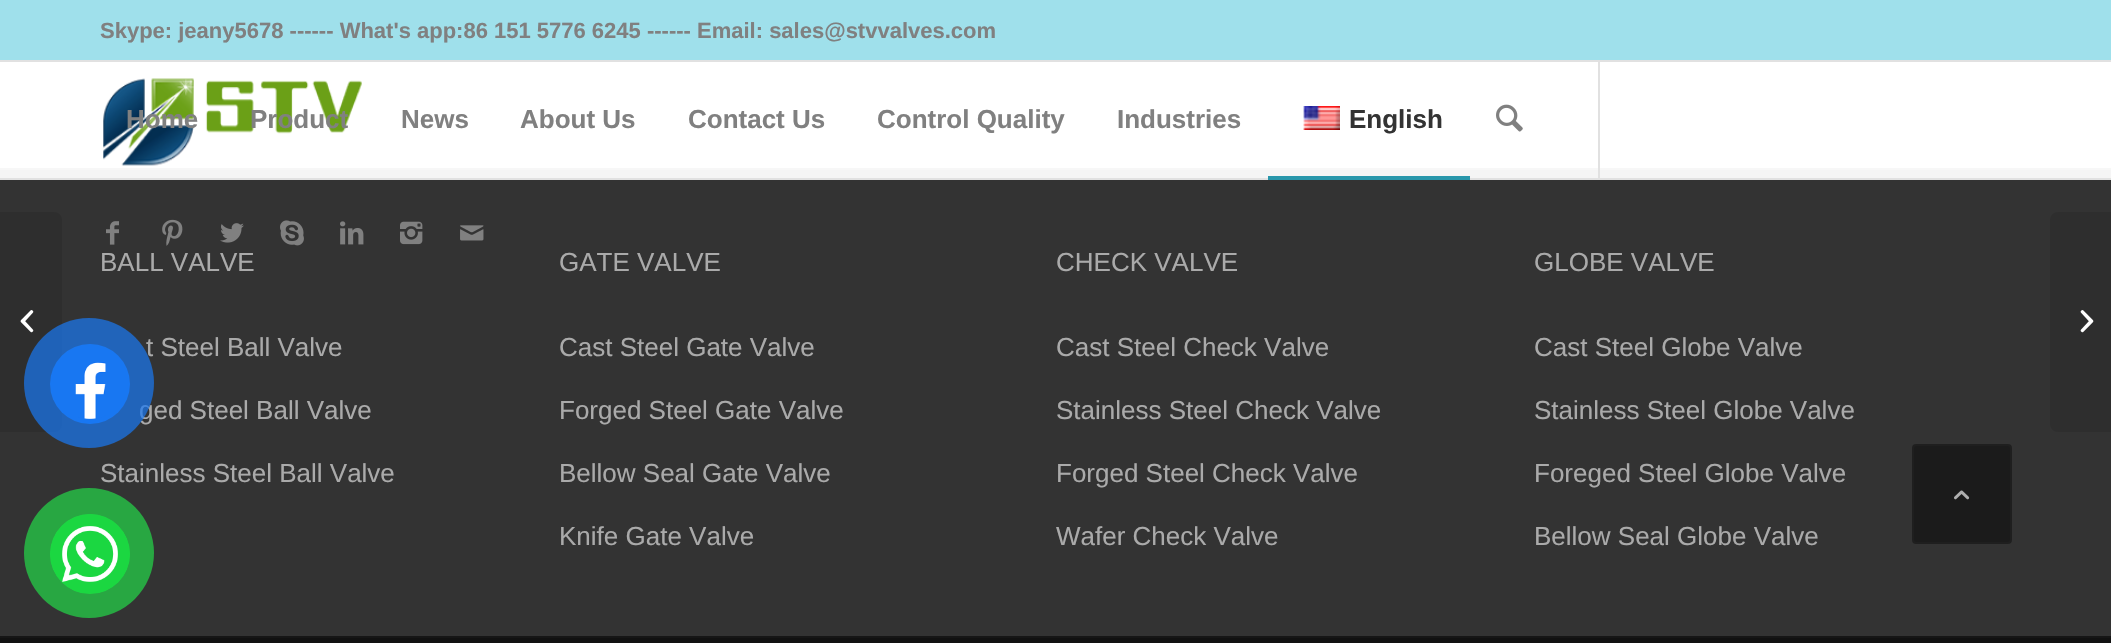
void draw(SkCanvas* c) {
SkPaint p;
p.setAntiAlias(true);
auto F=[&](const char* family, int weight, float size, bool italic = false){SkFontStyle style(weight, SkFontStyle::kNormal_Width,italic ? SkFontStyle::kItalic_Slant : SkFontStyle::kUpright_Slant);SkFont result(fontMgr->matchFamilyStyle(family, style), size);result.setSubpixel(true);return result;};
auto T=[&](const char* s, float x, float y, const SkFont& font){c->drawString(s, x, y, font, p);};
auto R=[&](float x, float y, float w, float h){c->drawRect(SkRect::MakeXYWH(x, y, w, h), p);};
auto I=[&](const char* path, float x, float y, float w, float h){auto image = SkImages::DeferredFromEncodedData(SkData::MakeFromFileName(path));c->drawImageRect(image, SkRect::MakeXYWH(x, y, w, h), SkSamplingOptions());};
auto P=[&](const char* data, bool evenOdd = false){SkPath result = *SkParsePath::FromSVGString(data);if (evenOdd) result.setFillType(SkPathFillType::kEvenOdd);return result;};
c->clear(0xffffffff);
p.setColor(0xff333333);
R(0,180,2111,456);
p.setColor(0xff2e2e2e);
c->drawPath(P("M0 212h54c4.5 0 8 3.5 8 8v204c0 4.5-3.5 8-8 8h-54z"),p);
I("13.png",20,310,14,23);
auto f1 = F("Liberation Sans",400,26);
p.setColor(0xffaaaaaa);
T("t Steel Ball Valve",146,356,f1);
T("ged Steel Ball Valve",139,419,f1);
p.setColor(0xb31877f2);
c->drawCircle(89,383,65,p);
p.setColor(0xff1877f2);
c->drawCircle(90,384,40,p);
I("1.png",75,362,31,57);
p.setColor(0xff28a742);
c->drawCircle(89,553,65,p);
p.setColor(0xff1cd741);
c->drawCircle(90,554,40,p);
I("2.png",50,514,80,79);
p.setColor(0xff9fe0eb);
R(0,0,2111,60);
p.setColor(0xffe1e1e1);
R(0,60,2111,2);
auto f2 = F("Liberation Sans",700,22);
p.setColor(0xff808080);
T("Skype: jeany5678 ------ What's app:86 151 5776 6245 ------ Email: sales@stvvalves.com",100,38,f2);
p.setColor(0xffe1e1e1);
R(0,178,2111,2);
I("3.png",103,78,259,88);
p.setColor(0xfff5f5f5);
R(0,170,2111,8);
p.setColor(0xfff7f7f7);
R(0,168,2111,2);
p.setColor(0xffe1e1e1);
R(1598,62,2,116);
auto f3 = F("Liberation Sans",700,26);
p.setColor(0xff808080);
T("Home",126,128,f3);
T("Product",250,128,f3);
T("News",401,128,f3);
T("About Us",520,128,f3);
T("Contact Us",688,128,f3);
T("Control Quality",877,128,f3);
T("Industries",1117,128,f3);
I("4.png",1303,106,37,24);
p.setColor(0xff333333);
T("English",1349,128,f3);
p.setColor(0xff2997ab);
R(1268,176,202,4);
I("5.png",1496,104,27,28);
I("6.png",106,221,13,24);
I("7.png",162,219,21,27);
I("8.png",220,223,24,20);
I("9.png",280,220,24,26);
I("10.png",340,221,24,24);
I("11.png",400,221,23,24);
I("12.png",460,225,24,16);
p.setColor(0xffaaaaaa);
T("BALL VALVE",100,271,f1);
T("Stainless Steel Ball Valve",100,482,f1);
T("GATE VALVE",559,271,f1);
T("Cast Steel Gate Valve",559,356,f1);
T("Forged Steel Gate Valve",559,419,f1);
T("Bellow Seal Gate Valve",559,482,f1);
T("Knife Gate Valve",559,545,f1);
T("CHECK VALVE",1056,271,f1);
T("Cast Steel Check Valve",1056,356,f1);
T("Stainless Steel Check Valve",1056,419,f1);
T("Forged Steel Check Valve",1056,482,f1);
T("Wafer Check Valve",1056,545,f1);
T("GLOBE VALVE",1534,271,f1);
T("Cast Steel Globe Valve",1534,356,f1);
T("Stainless Steel Globe Valve",1534,419,f1);
T("Foreged Steel Globe Valve",1534,482,f1);
T("Bellow Seal Globe Valve",1534,545,f1);
p.setColor(0xff111111);
R(0,638,2111,5);
p.setColor(0xff161616);
R(0,636,2111,2);
p.setColor(0xff2e2e2e);
c->drawPath(P("M2058 212h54v220h-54c-4.5 0-8-3.5-8-8v-204c0-4.5 3.5-8 8-8z"),p);
I("14.png",2080,310,14,23);
p.setColor(0xff1b1b1b);
c->drawRoundRect(SkRect::MakeXYWH(1913,445,98,98),3,3,p);
p.setStroke(true);
p.setStrokeWidth(2);
p.setColor(0xff1f1f1f);
c->drawRoundRect(SkRect::MakeXYWH(1913,445,98,98),3,3,p);
I("15.png",1954,490,16,10);
}
